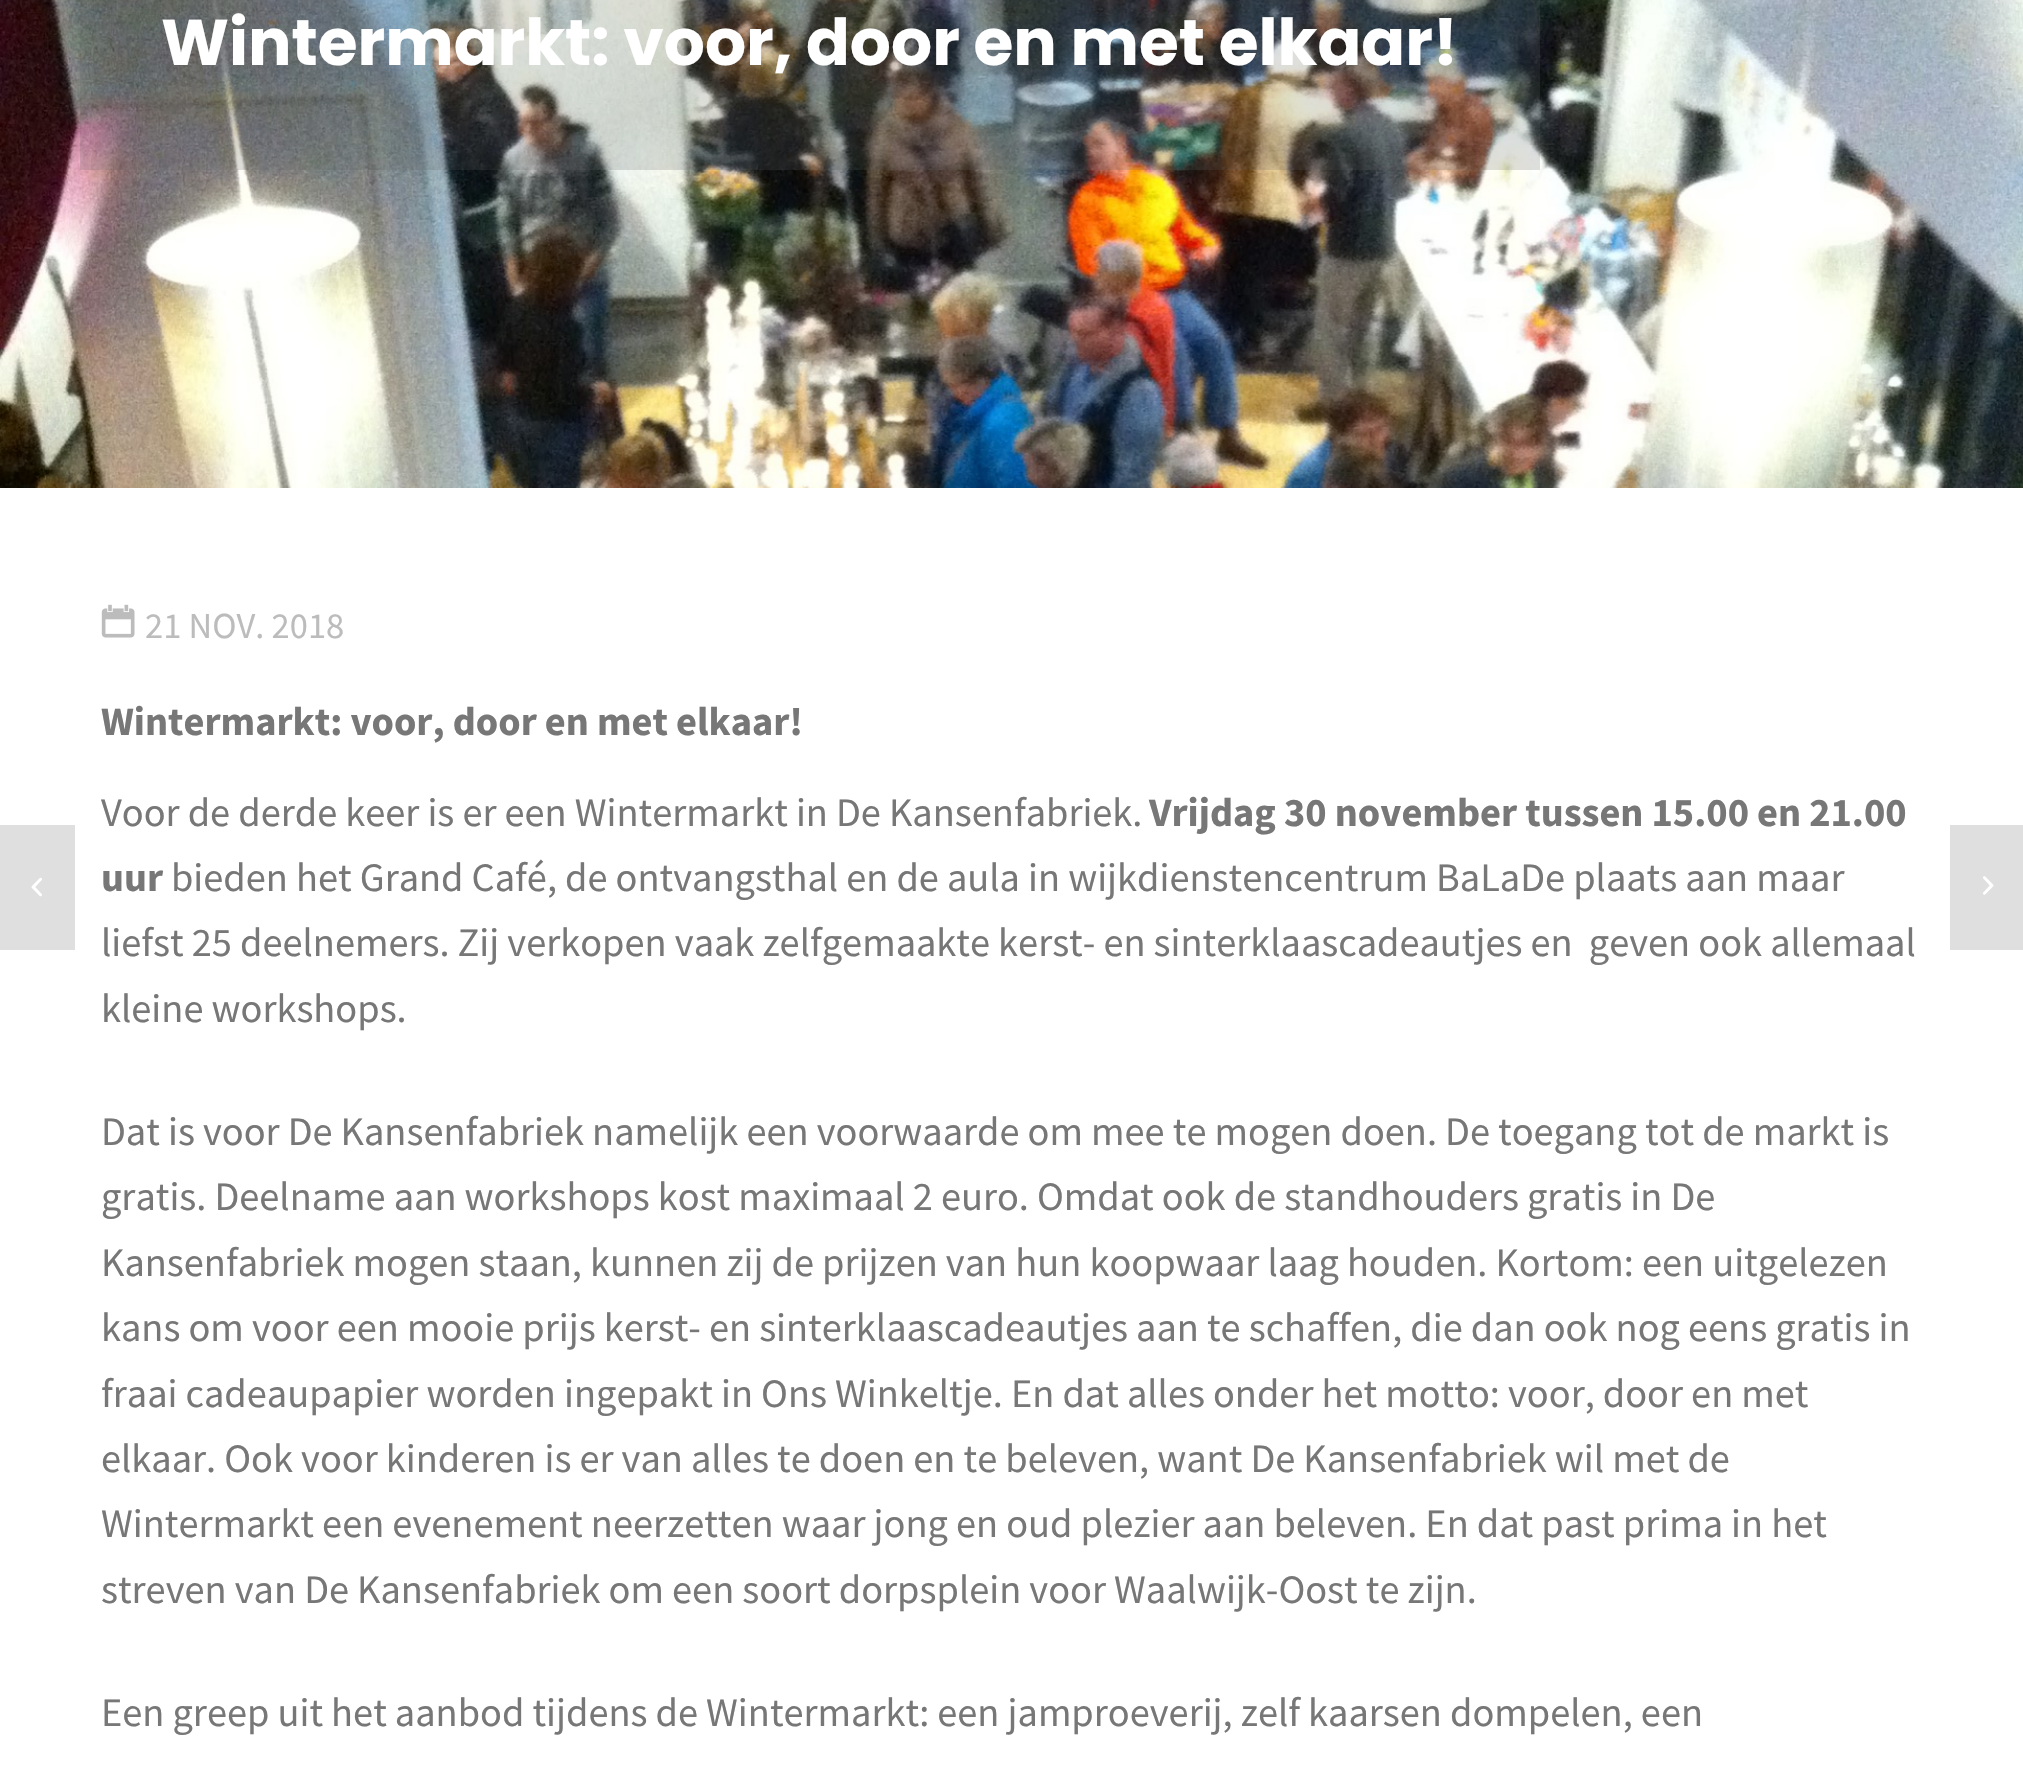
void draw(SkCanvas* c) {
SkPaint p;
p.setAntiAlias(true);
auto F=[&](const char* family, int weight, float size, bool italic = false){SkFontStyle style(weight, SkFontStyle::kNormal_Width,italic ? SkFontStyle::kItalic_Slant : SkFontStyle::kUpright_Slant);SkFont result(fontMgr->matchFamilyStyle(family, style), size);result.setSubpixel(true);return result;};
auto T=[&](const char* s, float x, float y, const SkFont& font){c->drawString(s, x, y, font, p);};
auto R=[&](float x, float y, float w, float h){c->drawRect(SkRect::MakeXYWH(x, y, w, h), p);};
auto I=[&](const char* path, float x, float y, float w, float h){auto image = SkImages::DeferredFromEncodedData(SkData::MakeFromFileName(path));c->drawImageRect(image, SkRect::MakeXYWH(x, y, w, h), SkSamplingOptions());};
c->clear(0xffffffff);
I("1.png",0,0,2023,488);
p.setColor(0x335e5e5e);
R(80,0,1460,170);
auto f1 = F("Poppins",700,64.6);
p.setColor(0xffffffff);
T("Wintermarkt: voor, door en met elkaar!",161,65,f1);
I("2.png",101,604,34,34);
auto f2 = F("Source Sans Pro",400,36.5);
p.setColor(0xffbcbcbc);
T("21 NOV. 2018",145,638,f2);
auto f3 = F("Source Sans Pro",700,40.4);
p.setColor(0xff777777);
T("Wintermarkt: voor, door en met elkaar!",101,735,f3);
auto f4 = F("Source Sans Pro",400,40.4);
T("Voor de derde keer is er een Wintermarkt in De Kansenfabriek.",101,826,f4);
T("Vrijdag 30 november tussen 15.00 en 21.00",1149,826,f3);
T("uur",101,891,f3);
T("bieden het Grand Café, de ontvangsthal en de aula in wijkdienstencentrum BaLaDe plaats aan maar",171,891,f4);
T("liefst 25 deelnemers. Zij verkopen vaak zelfgemaakte kerst- en sinterklaascadeautjes en  geven ook allemaal",101,956,f4);
T("kleine workshops.",101,1022,f4);
T("Dat is voor De Kansenfabriek namelijk een voorwaarde om mee te mogen doen. De toegang tot de markt is",101,1145,f4);
T("gratis. Deelname aan workshops kost maximaal 2 euro. Omdat ook de standhouders gratis in De",101,1210,f4);
T("Kansenfabriek mogen staan, kunnen zij de prijzen van hun koopwaar laag houden. Kortom: een uitgelezen",101,1276,f4);
T("kans om voor een mooie prijs kerst- en sinterklaascadeautjes aan te schaffen, die dan ook nog eens gratis in",101,1341,f4);
T("fraai cadeaupapier worden ingepakt in Ons Winkeltje. En dat alles onder het motto: voor, door en met",101,1407,f4);
T("elkaar. Ook voor kinderen is er van alles te doen en te beleven, want De Kansenfabriek wil met de",101,1472,f4);
T("Wintermarkt een evenement neerzetten waar jong en oud plezier aan beleven. En dat past prima in het",101,1537,f4);
T("streven van De Kansenfabriek om een soort dorpsplein voor Waalwijk-Oost te zijn.",101,1603,f4);
T("Een greep uit het aanbod tijdens de Wintermarkt: een jamproeverij, zelf kaarsen dompelen, een",101,1726,f4);
p.setColor(0xffdfdfdf);
R(0,825,75,125);
I("3.png",31,877,11,20);
R(1950,825,73,125);
I("4.png",1983,876,11,19);
}
